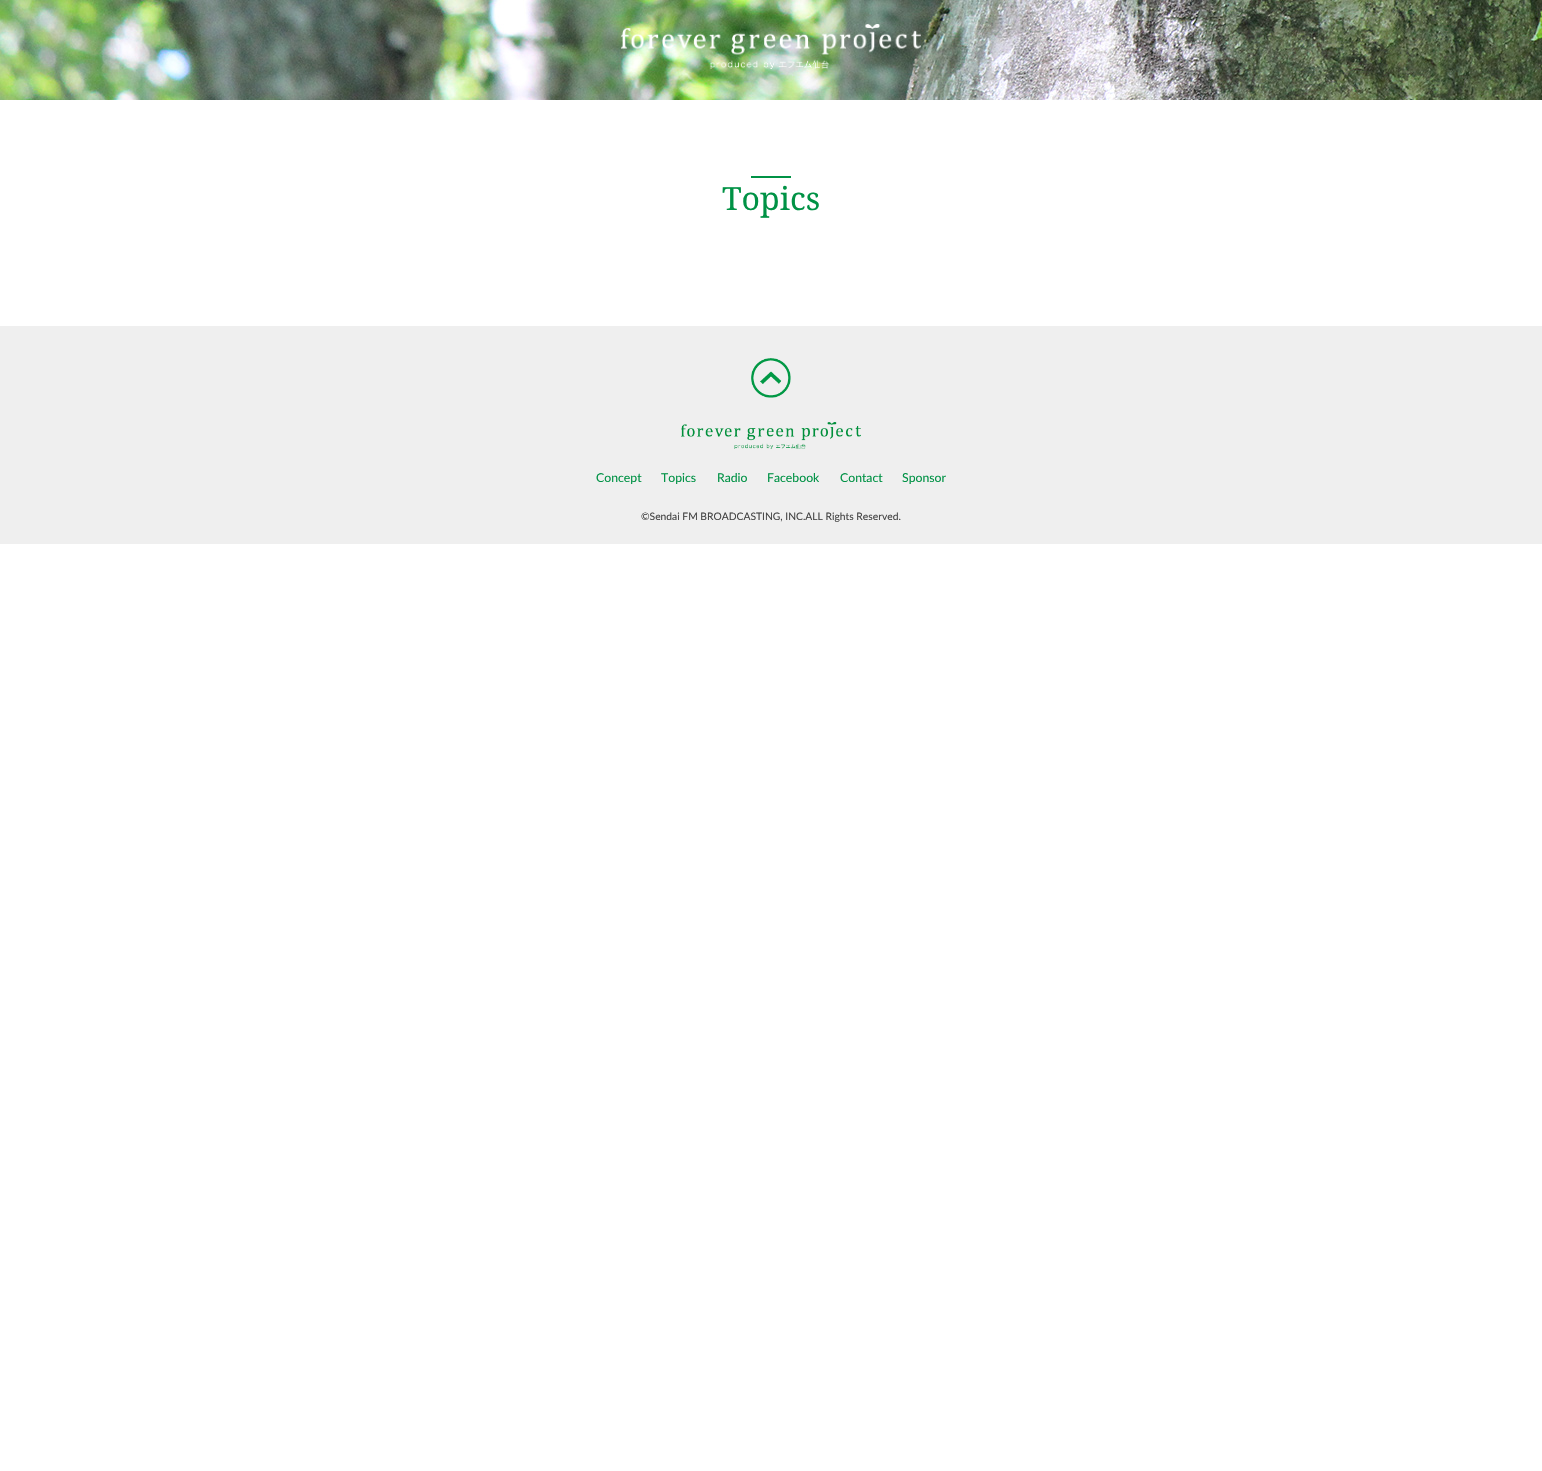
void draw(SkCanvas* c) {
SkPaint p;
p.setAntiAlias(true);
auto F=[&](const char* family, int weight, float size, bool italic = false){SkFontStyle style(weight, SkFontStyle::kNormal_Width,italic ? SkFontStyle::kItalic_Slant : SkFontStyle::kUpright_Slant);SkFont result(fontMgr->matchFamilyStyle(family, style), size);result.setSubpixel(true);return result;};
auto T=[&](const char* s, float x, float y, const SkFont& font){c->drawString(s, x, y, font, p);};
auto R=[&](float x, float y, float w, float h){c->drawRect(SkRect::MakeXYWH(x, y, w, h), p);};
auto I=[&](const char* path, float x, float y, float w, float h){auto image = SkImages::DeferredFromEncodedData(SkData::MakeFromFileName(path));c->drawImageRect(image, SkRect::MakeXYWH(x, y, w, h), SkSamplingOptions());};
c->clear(0xffffffff);
I("1.png",0,0,1542,100);
I("2.png",621,24,300,45);
p.setColor(0xff009245);
R(751,176,40,2);
auto f1 = F("Noto Serif",400,32);
T("Topics",722,210,f1);
p.setColor(0xffefefef);
R(0,326,1542,218);
I("3.png",751,358,40,40);
I("4.png",681,422,180,27);
auto f2 = F("Lato",400,12.25);
p.setColor(0xff009245);
T("Concept",596,482,f2);
T("Topics",661,482,f2);
T("Radio",717,482,f2);
T("Facebook",767,482,f2);
T("Contact",840,482,f2);
T("Sponsor",902,482,f2);
auto f3 = F("Lato",400,10.3);
p.setColor(0xff444444);
T("©Sendai FM BROADCASTING, INC.ALL Rights Reserved.",641,520,f3);
}
